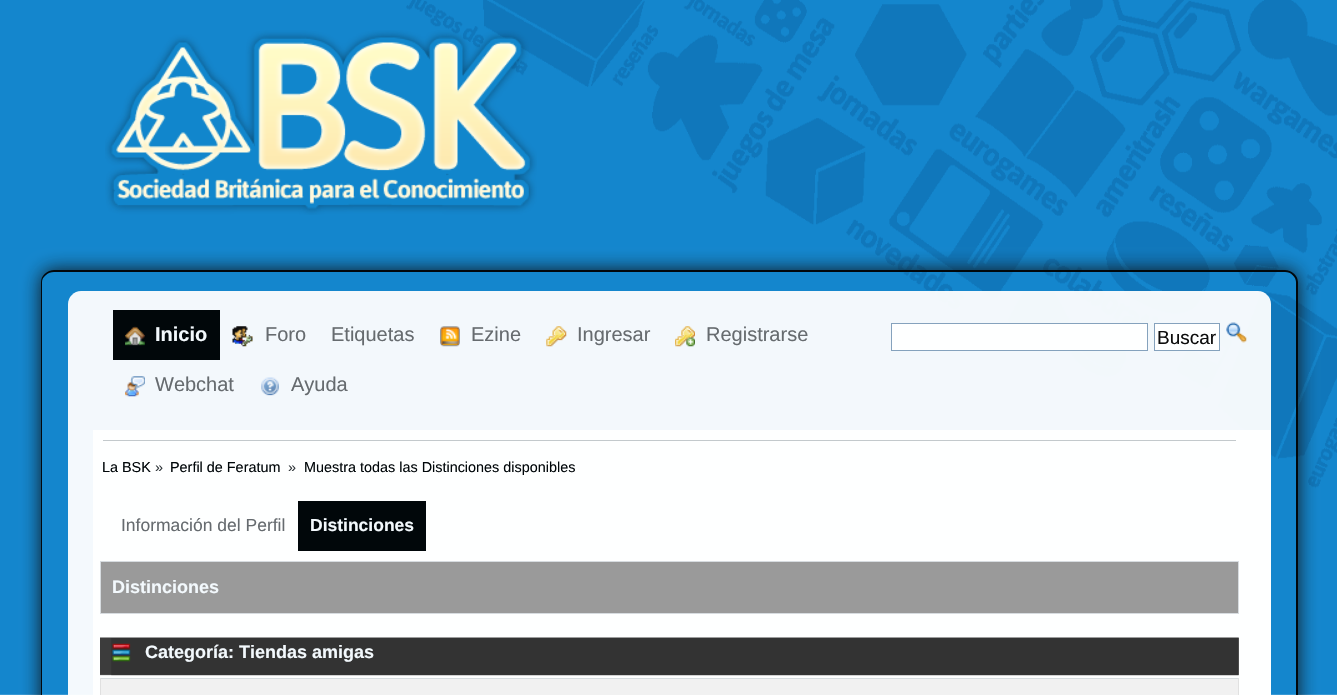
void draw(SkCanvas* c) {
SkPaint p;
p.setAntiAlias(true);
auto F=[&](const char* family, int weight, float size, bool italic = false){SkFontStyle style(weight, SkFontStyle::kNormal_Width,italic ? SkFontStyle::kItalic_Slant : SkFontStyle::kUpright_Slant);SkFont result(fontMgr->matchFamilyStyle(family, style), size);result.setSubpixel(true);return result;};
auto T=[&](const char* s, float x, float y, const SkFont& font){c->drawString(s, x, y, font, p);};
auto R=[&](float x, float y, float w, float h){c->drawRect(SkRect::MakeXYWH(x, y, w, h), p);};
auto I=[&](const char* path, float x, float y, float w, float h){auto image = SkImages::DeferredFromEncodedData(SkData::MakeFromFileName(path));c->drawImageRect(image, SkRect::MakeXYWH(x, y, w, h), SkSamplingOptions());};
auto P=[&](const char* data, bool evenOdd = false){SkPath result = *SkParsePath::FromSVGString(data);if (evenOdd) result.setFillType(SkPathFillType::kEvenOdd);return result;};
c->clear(0xffffffff);
I("1.png",0,0,1337,695);
I("2.png",105,30,432,185);
c->save();
c->clipPath(P("M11 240h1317v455h-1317zm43 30h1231c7 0 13 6 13 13v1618h-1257v-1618c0-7 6-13 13-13z",true),true);
p.setColor(0xf2111111);
p.setMaskFilter(SkMaskFilter::MakeBlur(kNormal_SkBlurStyle, 9.5));
c->drawRoundRect(SkRect::MakeXYWH(41,270,1257,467),13,13,p);
p.setMaskFilter(nullptr);
c->restore();
p.setColor(0xf2000000);
c->drawPath(P("M54 270h1231c7 0 13 6 13 12v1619h-1257v-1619c0-6 6-12 13-12zm0 2h1231c6 0 11 5 11 10v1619h-1254v-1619c0-5 6-10 12-10z",true),p);
p.setColor(0xf2fefefe);
c->drawPath(P("M81 291h1177c7 0 13 6 13 13v126h-1203v-126c0-7 6-13 13-13z"),p);
p.setColor(0xff01070a);
R(113,310,107,50);
I("3.png",125,326,20,20);
auto f1 = F("Liberation Sans",700,20);
p.setColor(0xfff3f9fd);
T("Inicio",155,341,f1);
I("4.png",232,326,21,21);
auto f2 = F("Liberation Sans",400,20);
p.setColor(0xff666b6f);
T("Foro",265,341,f2);
T("Etiquetas",331,341,f2);
I("5.png",440,326,20,21);
T("Ezine",471,341,f2);
I("6.png",546,326,21,21);
T("Ingresar",577,341,f2);
I("7.png",675,326,20,21);
T("Registrarse",706,341,f2);
I("8.png",125,376,20,21);
T("Webchat",155,391,f2);
I("9.png",261,377,18,19);
T("Ayuda",291,391,f2);
p.setColor(0xfffeffff);
c->drawRect(SkRect::MakeXYWH(891.5,323.5,256,27),p);
p.setStroke(true);
p.setStrokeWidth(1);
p.setColor(0xff85a2bd);
c->drawRect(SkRect::MakeXYWH(891.5,323.5,256,27),p);
p.setStroke(false);
p.setColor(0xfffeffff);
c->drawRect(SkRect::MakeXYWH(1154.5,323.5,65,27),p);
p.setStroke(true);
p.setColor(0xff85a2bd);
c->drawRect(SkRect::MakeXYWH(1154.5,323.5,65,27),p);
auto f3 = F("Liberation Sans",400,19);
p.setStroke(false);
p.setColor(0xff0d0d0d);
T("Buscar",1157,344,f3);
I("10.png",1226,322,21,21);
p.setColor(0xf2ffffff);
R(68,430,25,265);
p.setColor(0xfffeffff);
R(93,430,1178,265);
p.setColor(0xffc3c9cc);
R(103,440,1133,1);
auto f4 = F("Liberation Sans",400,14.4);
p.setColor(0xff01070a);
T("La BSK",102,472,f4);
p.setColor(0xff31373b);
T("»",155,472,f4);
p.setColor(0xff01070a);
T("Perfil de Feratum",170,472,f4);
p.setColor(0xff31373b);
T("»",288,472,f4);
p.setColor(0xff01070a);
T("Muestra todas las Distinciones disponibles",304,472,f4);
auto f5 = F("Liberation Sans",400,17.5);
p.setColor(0xff666b6f);
T("Información del Perfil",121,531,f5);
p.setColor(0xff01070a);
R(298,501,128,50);
auto f6 = F("Liberation Sans",700,17.5);
p.setColor(0xfff3f9fd);
T("Distinciones",310,531,f6);
p.setColor(0xff9a9a9a);
c->drawRect(SkRect::MakeXYWH(100.5,561.5,1138,52),p);
p.setStroke(true);
p.setColor(0xffd7dce0);
c->drawRect(SkRect::MakeXYWH(100.5,561.5,1138,52),p);
auto f7 = F("Liberation Sans",700,18);
p.setStroke(false);
p.setColor(0xfff3f9fd);
T("Distinciones",112,593,f7);
I("11.png",100,637,1139,39);
I("12.png",111,638,1128,38);
I("13.png",112,643,19,19);
T("Categoría: Tiendas amigas",145,658,f7);
p.setColor(0xfff1f1f1);
R(100,679,1138,16);
p.setColor(0xffd5dbde);
R(100,678,1139,1);
p.setColor(0xf2dfdfdf);
R(1238,678,1,17);
R(100,678,1,17);
}
